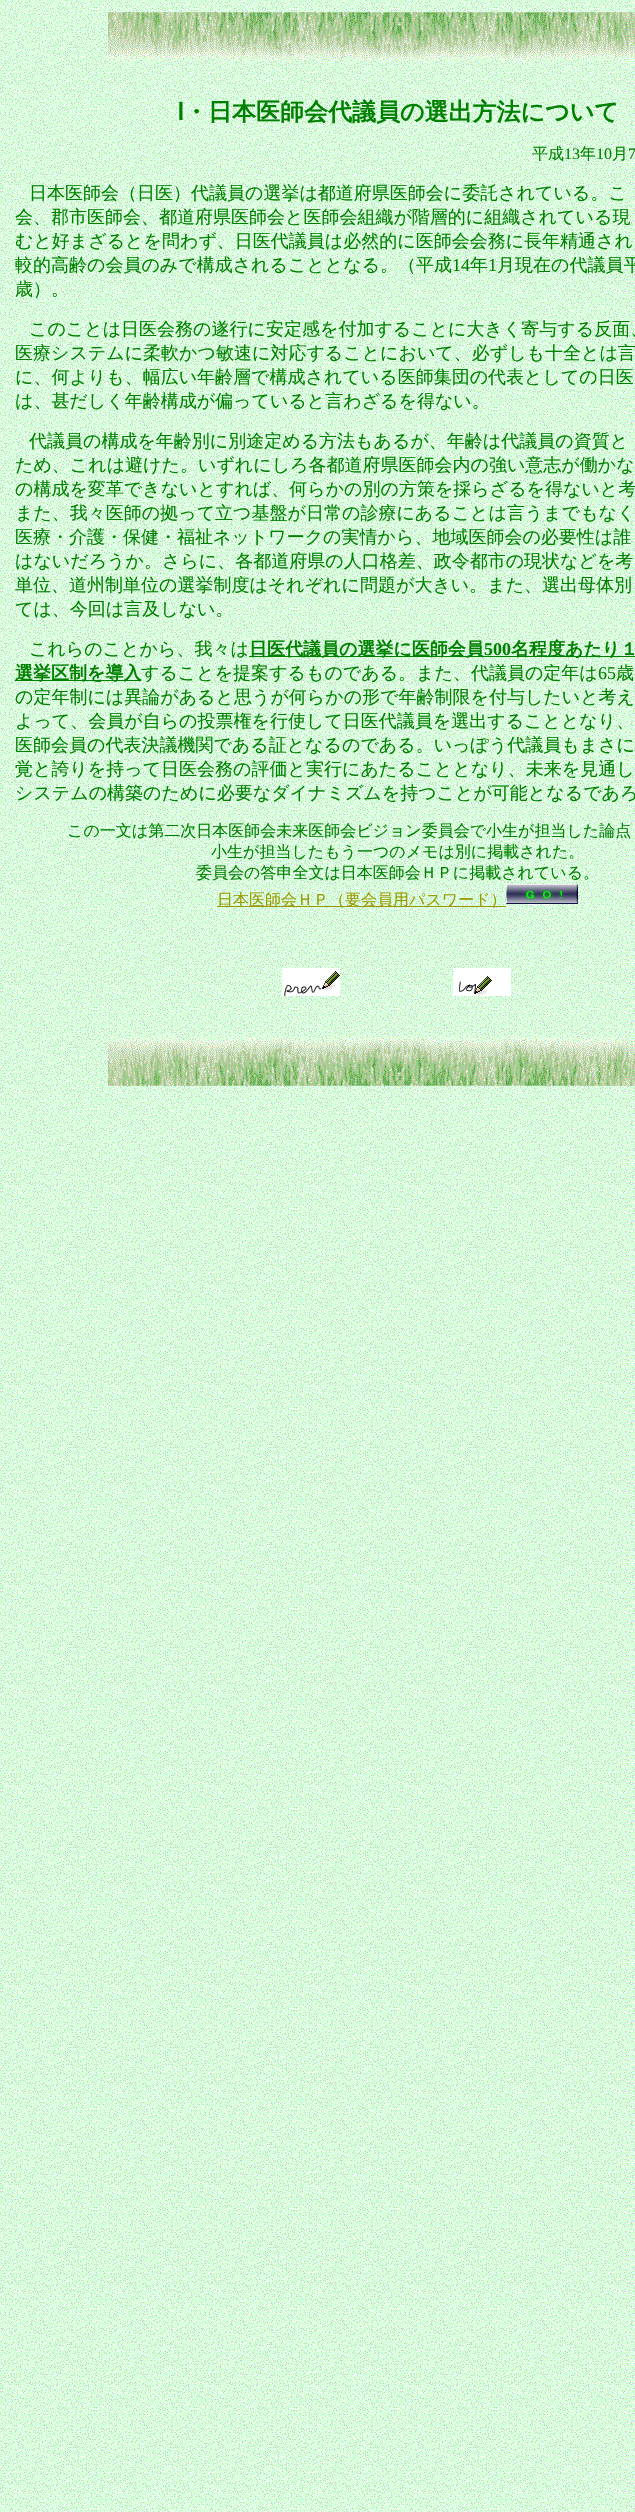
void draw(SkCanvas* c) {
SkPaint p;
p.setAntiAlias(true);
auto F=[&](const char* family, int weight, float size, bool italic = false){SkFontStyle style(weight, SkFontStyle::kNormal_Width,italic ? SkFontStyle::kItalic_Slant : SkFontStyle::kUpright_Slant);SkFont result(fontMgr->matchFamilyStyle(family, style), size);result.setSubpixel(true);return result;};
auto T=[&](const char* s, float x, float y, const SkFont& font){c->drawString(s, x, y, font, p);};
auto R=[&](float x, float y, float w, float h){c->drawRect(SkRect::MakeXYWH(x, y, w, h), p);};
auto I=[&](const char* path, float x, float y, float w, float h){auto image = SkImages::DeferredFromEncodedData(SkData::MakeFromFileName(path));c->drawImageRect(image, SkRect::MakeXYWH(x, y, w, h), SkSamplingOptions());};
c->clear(0xffffffff);
I("1.png",0,0,635,2512);
I("2.png",108,12,527,50);
auto f1 = F("DejaVu Sans",700,24);
p.setColor(0xff008000);
T("Ⅰ",177,120,f1);
auto f2 = F("WenQuanYi Zen Hei",700,24);
T("・日本医師会代議員の選出方法について",184,120,f2);
auto f3 = F("WenQuanYi Zen Hei",500,16);
T("平成",532,159,f3);
auto f4 = F("Liberation Serif",400,16);
T("13",564,159,f4);
T("年",580,159,f3);
T("10",596,159,f4);
T("月",612,159,f3);
T("7",628,159,f4);
auto f5 = F("WenQuanYi Zen Hei",500,18);
T("日本医師会（日医）代議員の選挙は都道府県医師会に委託されている。こ",29,199,f5);
T("会、郡市医師会、都道府県医師会と医師会組織が階層的に組織されている現",15,223,f5);
T("むと好まざるとを問わず、日医代議員は必然的に医師会会務に長年精通され",15,247,f5);
T("較的高齢の会員のみで構成されることとなる。（平成",15,271,f5);
auto f6 = F("Liberation Serif",400,18);
T("14",452,271,f6);
T("年",470,271,f5);
T("1",488,271,f6);
T("月現在の代議員平",497,271,f5);
T("歳）。",15,295,f5);
T("このことは日医会務の遂行に安定感を付加することに大きく寄与する反面、",29,335,f5);
T("医療システムに柔軟かつ敏速に対応することにおいて、必ずしも十全とは言",15,359,f5);
T("に、何よりも、幅広い年齢層で構成されている医師集団の代表としての日医",15,383,f5);
T("は、甚だしく年齢構成が偏っていると言わざるを得ない。",15,407,f5);
T("代議員の構成を年齢別に別途定める方法もあるが、年齢は代議員の資質と",29,447,f5);
T("ため、これは避けた。いずれにしろ各都道府県医師会内の強い意志が働かな",15,471,f5);
T("の構成を変革できないとすれば、何らかの別の方策を採らざるを得ないと考",15,495,f5);
T("また、我々医師の拠って立つ基盤が日常の診療にあることは言うまでもなく",15,519,f5);
T("医療・介護・保健・福祉ネットワークの実情から、地域医師会の必要性は誰",15,543,f5);
T("はないだろうか。さらに、各都道府県の人口格差、政令都市の現状などを考",15,567,f5);
T("単位、道州制単位の選挙制度はそれぞれに問題が大きい。また、選出母体別",15,591,f5);
T("ては、今回は言及しない。",15,615,f5);
T("これらのことから、我々は",29,655,f5);
R(249,656,386,1);
auto f7 = F("WenQuanYi Zen Hei",700,18);
T("日医代議員の選挙に医師会員",249,655,f7);
auto f8 = F("Liberation Serif",700,18);
T("500",484,655,f8);
T("名程度あたり１",511,655,f7);
R(15,680,126,1);
T("選挙区制を導入",15,679,f7);
T("することを提案するものである。また、代議員の定年は",141,679,f5);
T("65",598,679,f6);
T("歳",616,679,f5);
T("の定年制には異論があると思うが何らかの形で年齢制限を付与したいと考え",15,703,f5);
T("よって、会員が自らの投票権を行使して日医代議員を選出することとなり、",15,727,f5);
T("医師会員の代表決議機関である証となるのである。いっぽう代議員もまさに",15,751,f5);
T("覚と誇りを持って日医会務の評価と実行にあたることとなり、未来を見通し",15,775,f5);
T("システムの構築のために必要なダイナミズムを持つことが可能となるであろ",15,799,f5);
T("この一文は第二次日本医師会未来医師会ビジョン委員会で小生が担当した論点",67,836,f3);
T("小生が担当したもう一つのメモは別に掲載された。",211,857,f3);
T("委員会の答申全文は日本医師会ＨＰに掲載されている。",196,878,f3);
p.setColor(0xff999900);
R(217,906,289,1);
T("日本医師会ＨＰ（要会員用パスワード）",217,905,f3);
I("3.png",506,884,72,21);
I("4.png",282,968,58,28);
I("5.png",453,968,58,28);
I("6.png",108,1036,527,50);
}
